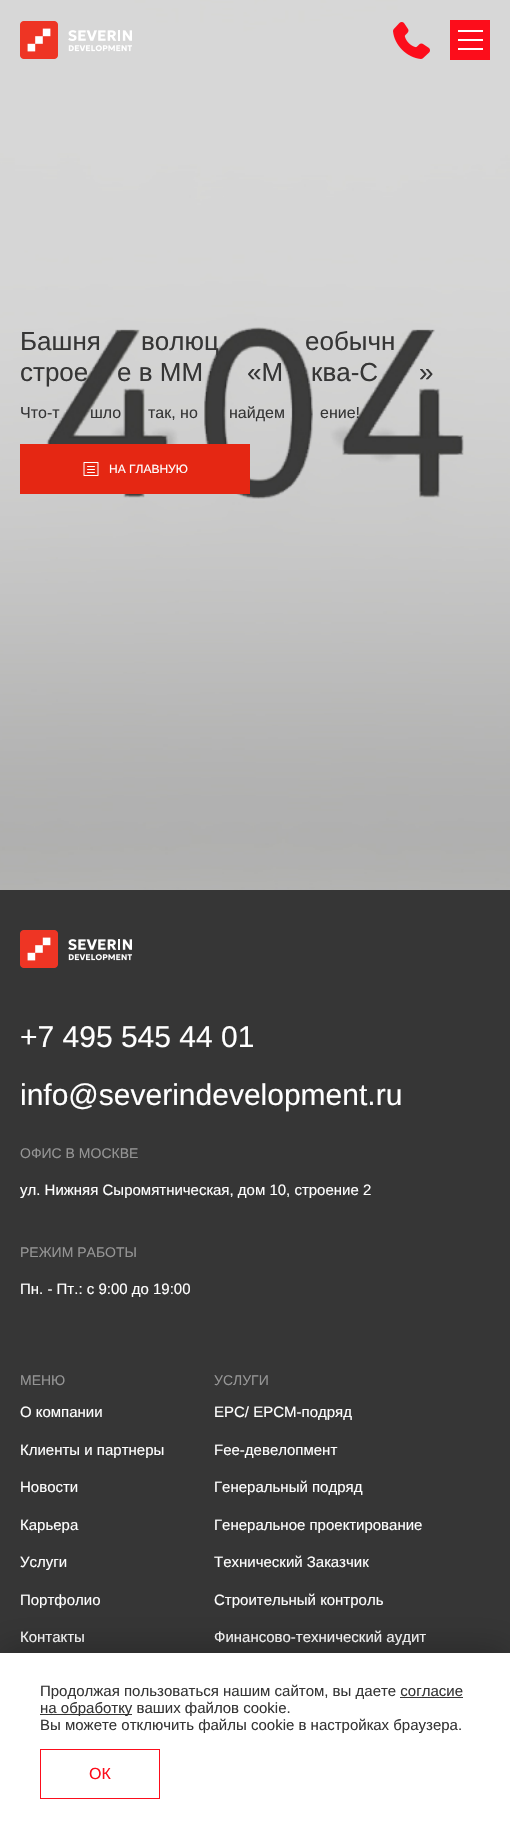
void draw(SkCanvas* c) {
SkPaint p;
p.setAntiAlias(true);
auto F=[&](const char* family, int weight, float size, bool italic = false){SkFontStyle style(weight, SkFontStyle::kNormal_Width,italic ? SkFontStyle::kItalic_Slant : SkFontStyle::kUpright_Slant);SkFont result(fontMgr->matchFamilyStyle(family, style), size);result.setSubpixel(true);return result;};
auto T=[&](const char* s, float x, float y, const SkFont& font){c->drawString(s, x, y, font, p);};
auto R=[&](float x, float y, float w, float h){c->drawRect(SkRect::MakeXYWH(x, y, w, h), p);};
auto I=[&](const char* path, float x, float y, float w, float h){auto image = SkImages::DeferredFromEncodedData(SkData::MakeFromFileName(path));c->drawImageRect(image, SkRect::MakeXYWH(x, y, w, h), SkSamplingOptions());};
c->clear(0xff363636);
I("3.png",0,0,510,890);
I("1.png",20,21,112,38);
I("2.png",393,22,37,37);
p.setColor(0xfffc0d1b);
R(450,20,40,40);
p.setColor(0xffffffff);
R(458,30,25,2);
R(458,39,25,2);
R(458,48,25,2);
auto f1 = F("Liberation Sans",400,26);
p.setColor(0xff363636);
T("Башня",20,350,f1);
T("волюц",141,350,f1);
T("еобычн",305,350,f1);
T("строе",20,381,f1);
T("е в ММ",117,381,f1);
T("«М",247,381,f1);
T("ква-С",311,381,f1);
T("»",419,381,f1);
auto f2 = F("Liberation Sans",400,16);
T("Что-т",20,418,f2);
T("шло",90,418,f2);
T("так, но",148,418,f2);
T("найдем",229,418,f2);
T("ение!",320,418,f2);
p.setColor(0xffe52713);
R(20,444,230,50);
I("4.png",83,462,16,14);
auto f3 = F("Liberation Sans",400,12);
p.setColor(0xffffffff);
T("НА ГЛАВНУЮ",109,473,f3);
I("5.png",20,930,112,38);
auto f4 = F("Liberation Sans",400,30);
T("+7 495 545 44 01",20,1047,f4);
T("info@severindevelopment.ru",20,1105,f4);
auto f5 = F("Liberation Sans",400,14);
p.setColor(0xff959595);
T("ОФИС В МОСКВЕ",20,1158,f5);
auto f6 = F("Liberation Sans",400,15);
p.setColor(0xffffffff);
T("ул. Нижняя Сыромятническая, дом 10, строение 2",20,1195,f6);
p.setColor(0xff959595);
T("РЕЖИМ РАБОТЫ",20,1257,f5);
p.setColor(0xffffffff);
T("Пн. - Пт.: с 9:00 до 19:00",20,1294,f6);
p.setColor(0xff959595);
T("МЕНЮ",20,1385,f5);
p.setColor(0xffffffff);
T("О компании",20,1417,f6);
T("Клиенты и партнеры",20,1455,f6);
T("Новости",20,1492,f6);
T("Карьера",20,1530,f6);
T("Услуги",20,1567,f6);
T("Портфолио",20,1605,f6);
T("Контакты",20,1642,f6);
p.setColor(0xff959595);
T("УСЛУГИ",214,1385,f5);
p.setColor(0xffffffff);
T("EPC/ EPCM-подряд",214,1417,f6);
T("Fee-девелопмент",214,1455,f6);
T("Генеральный подряд",214,1492,f6);
T("Генеральное проектирование",214,1530,f6);
T("Технический Заказчик",214,1567,f6);
T("Строительный контроль",214,1605,f6);
T("Финансово-технический аудит",214,1642,f6);
p.setColor(0x40000000);
p.setMaskFilter(SkMaskFilter::MakeBlur(kNormal_SkBlurStyle, 17));
c->drawRect(SkRect::MakeXYWH(0,1649,510,175),p);
p.setMaskFilter(nullptr);
p.setColor(0xffffffff);
R(0,1653,510,175);
p.setColor(0xff363636);
T("Продолжая пользоваться нашим сайтом, вы даете согласие",40,1696,f6);
R(40,1714,92,1);
T("на обработку ваших файлов cookie.",40,1713,f6);
R(400,1697,63,1);
T("Вы можете отключить файлы cookie в настройках браузера.",40,1730,f6);
p.setStroke(true);
p.setStrokeWidth(1);
p.setColor(0xfffc0d1b);
c->drawRect(SkRect::MakeXYWH(40.5,1749.5,119,49),p);
p.setStroke(false);
T("ОК",89,1779,f2);
}
